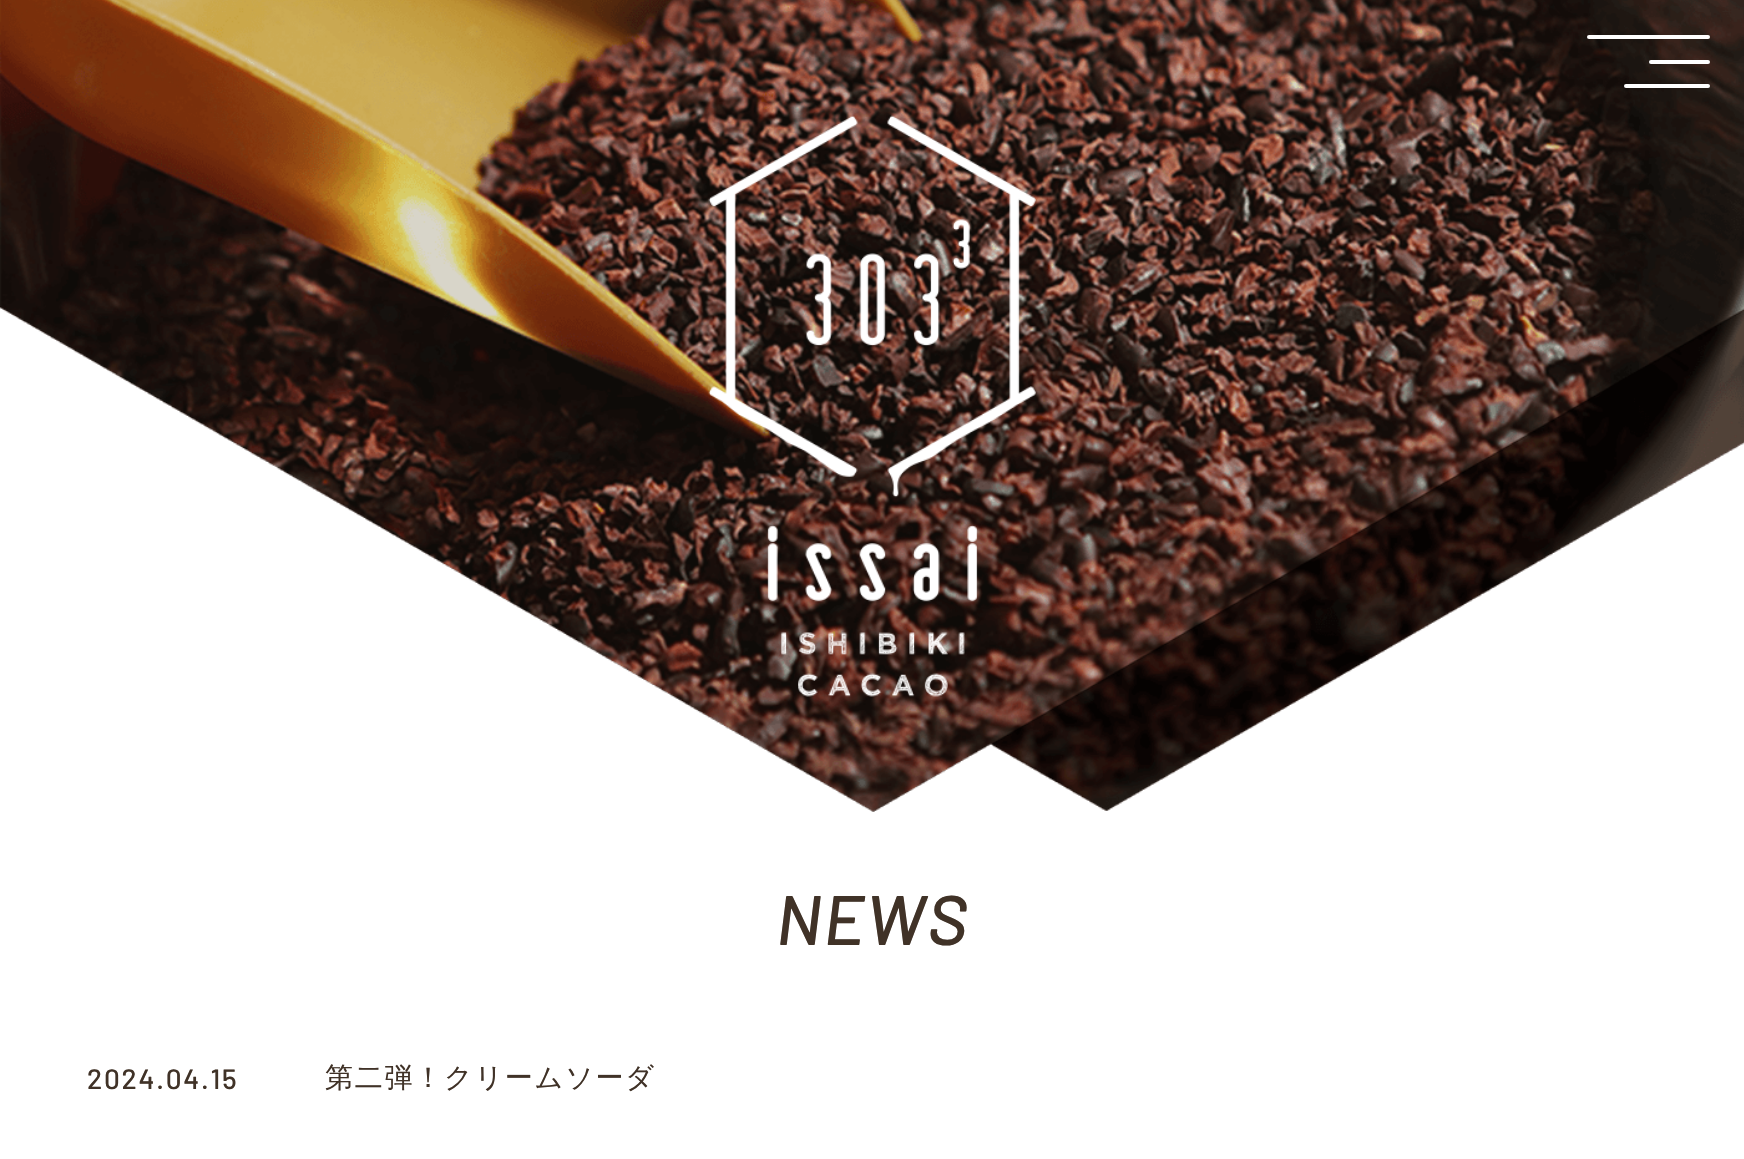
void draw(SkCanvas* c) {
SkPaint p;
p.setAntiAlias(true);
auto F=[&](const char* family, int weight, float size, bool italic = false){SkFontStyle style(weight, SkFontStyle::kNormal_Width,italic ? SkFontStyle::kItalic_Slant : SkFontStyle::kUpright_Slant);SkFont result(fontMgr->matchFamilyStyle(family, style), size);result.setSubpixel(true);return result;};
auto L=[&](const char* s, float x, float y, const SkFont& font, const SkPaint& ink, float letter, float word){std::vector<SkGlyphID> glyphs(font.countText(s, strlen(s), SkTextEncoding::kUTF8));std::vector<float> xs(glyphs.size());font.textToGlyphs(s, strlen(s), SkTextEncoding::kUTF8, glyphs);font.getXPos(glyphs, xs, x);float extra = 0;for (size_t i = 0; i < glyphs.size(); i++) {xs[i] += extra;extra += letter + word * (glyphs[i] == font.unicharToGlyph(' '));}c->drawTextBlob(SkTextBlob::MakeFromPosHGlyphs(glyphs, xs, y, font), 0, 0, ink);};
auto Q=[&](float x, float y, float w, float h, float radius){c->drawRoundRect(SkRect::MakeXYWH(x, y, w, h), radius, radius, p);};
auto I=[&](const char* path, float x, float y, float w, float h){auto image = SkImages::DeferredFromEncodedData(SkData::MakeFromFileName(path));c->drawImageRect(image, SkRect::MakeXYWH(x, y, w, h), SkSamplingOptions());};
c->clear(0xffffffff);
I("1.png",0,0,1744,812);
p.setColor(0xffffffff);
Q(1587,35,123,4,2);
Q(1649,60,61,4,2);
Q(1624,84,86,4,2);
I("2.png",708,115,328,582);
auto f1 = F("Barlow",500,70,true);
p.setColor(0xff403227);
L("NEWS",776,945,f1,p,1.75,0);
auto f2 = F("Barlow",500,28);
L("2024.04.15",87,1089,f2,p,1.75,0);
auto f3 = F("WenQuanYi Zen Hei",500,28);
L("第二弾！クリームソーダ",325,1087,f3,p,1.75,0);
}
